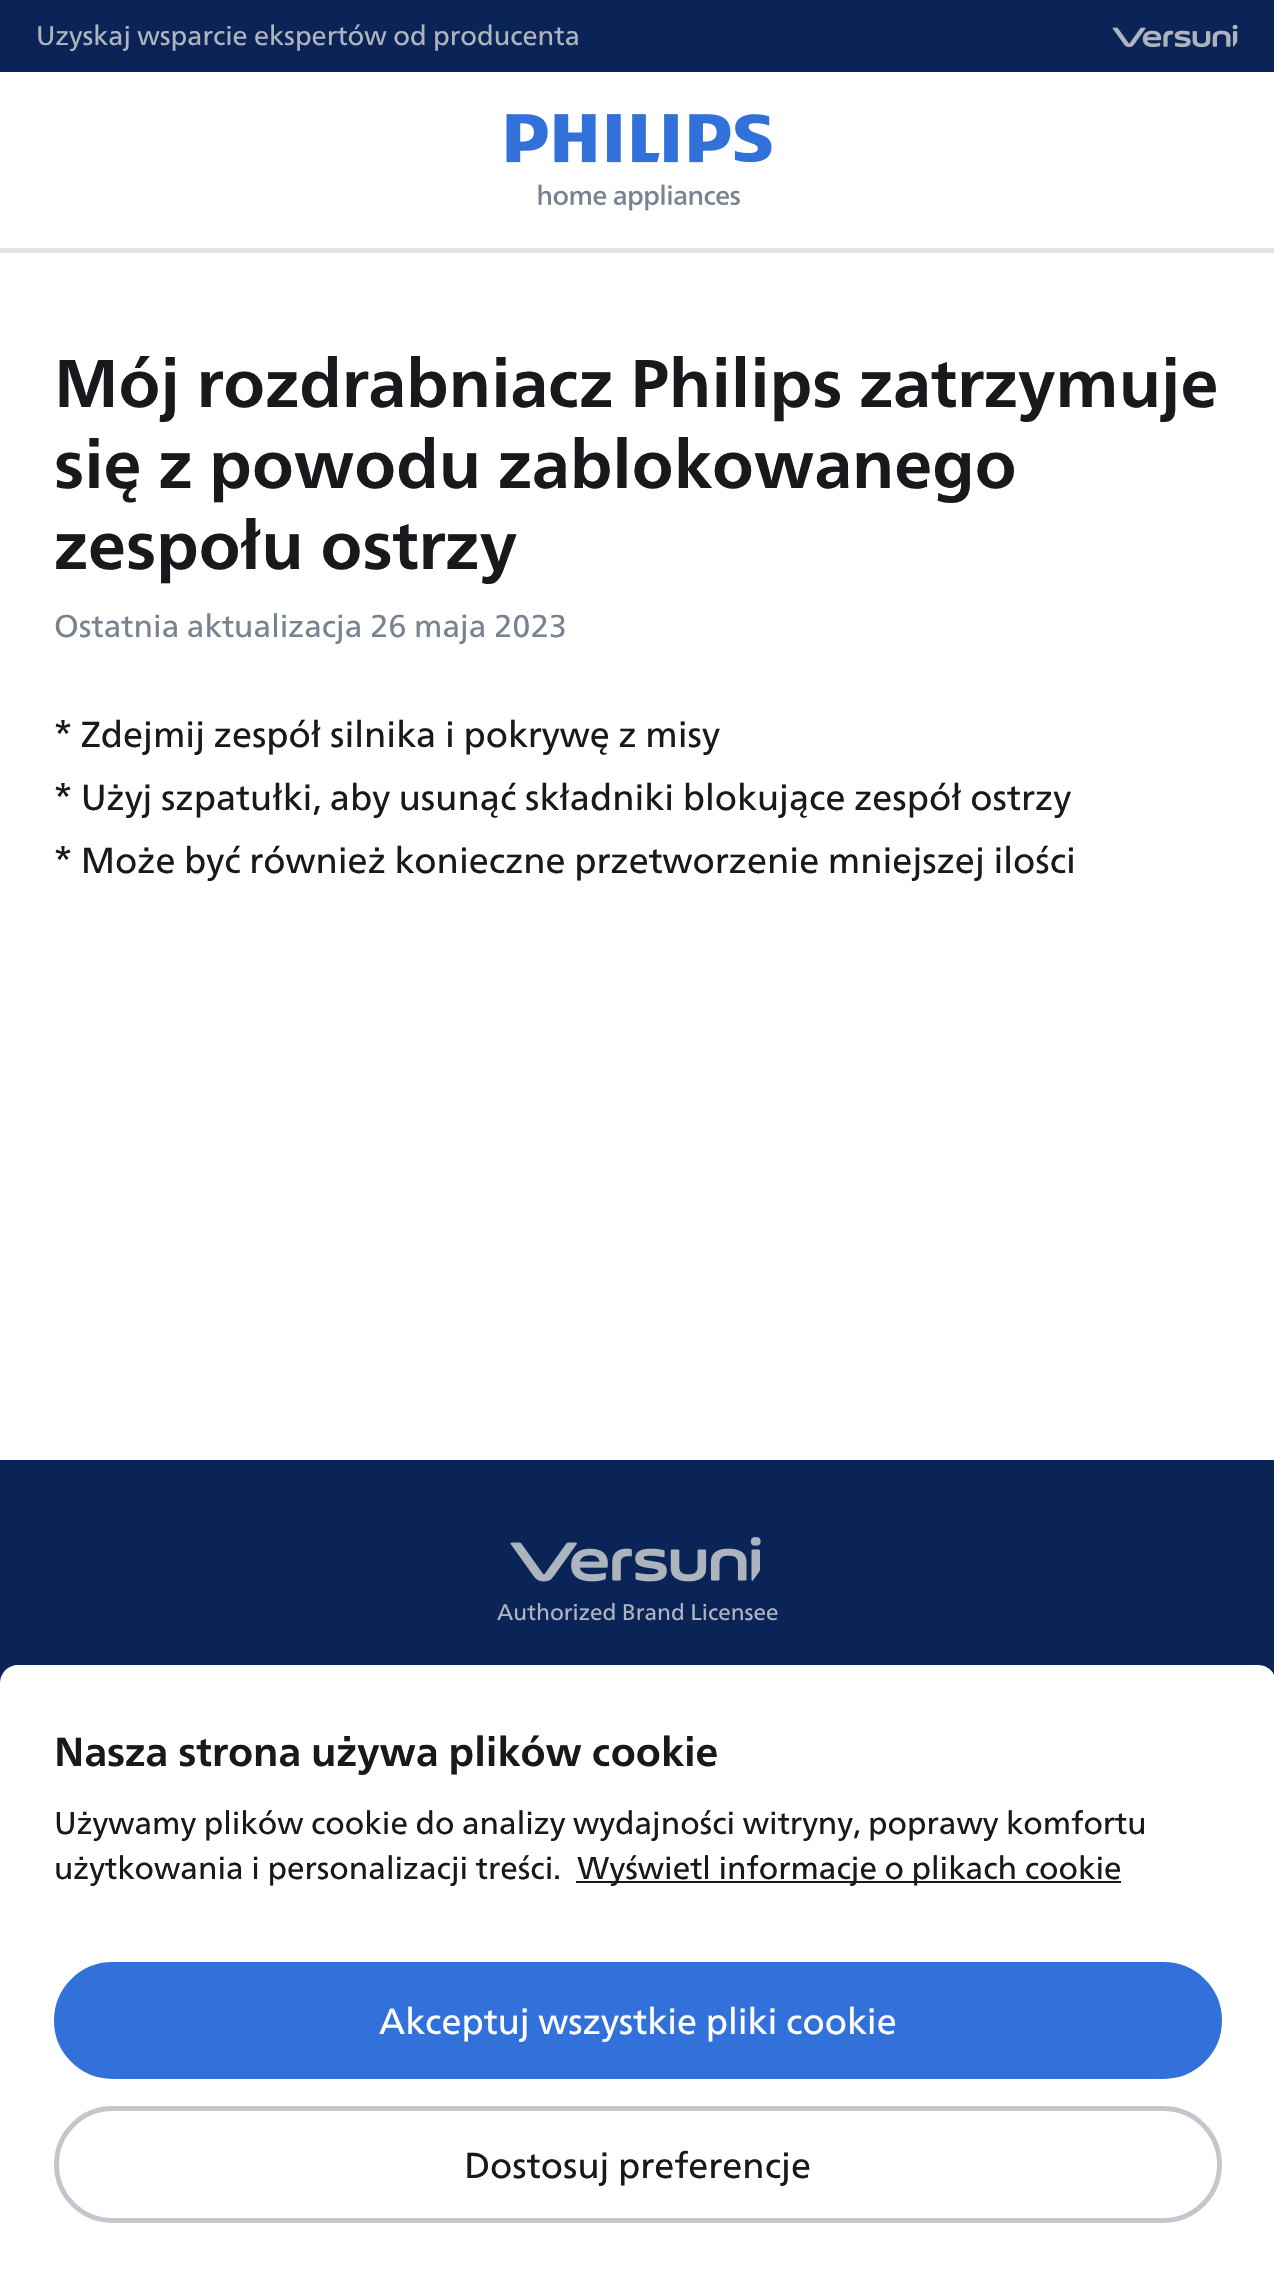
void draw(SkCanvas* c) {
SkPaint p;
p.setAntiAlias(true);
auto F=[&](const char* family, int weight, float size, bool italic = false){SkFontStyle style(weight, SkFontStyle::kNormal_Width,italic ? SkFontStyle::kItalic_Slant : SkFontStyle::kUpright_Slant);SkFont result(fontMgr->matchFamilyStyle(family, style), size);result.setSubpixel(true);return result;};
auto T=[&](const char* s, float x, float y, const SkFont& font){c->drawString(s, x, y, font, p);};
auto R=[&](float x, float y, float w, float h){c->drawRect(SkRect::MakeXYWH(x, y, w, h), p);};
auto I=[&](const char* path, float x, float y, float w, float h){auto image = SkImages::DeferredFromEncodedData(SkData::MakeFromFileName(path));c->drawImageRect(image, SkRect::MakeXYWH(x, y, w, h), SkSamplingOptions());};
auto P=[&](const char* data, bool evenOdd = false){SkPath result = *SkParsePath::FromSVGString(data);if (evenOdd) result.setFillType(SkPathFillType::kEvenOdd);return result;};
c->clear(0xffffffff);
p.setColor(0xff0a2457);
R(0,0,1274,72);
auto f1 = F("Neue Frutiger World",400,27);
p.setColor(0xffaeb4bd);
T("Uzyskaj wsparcie ekspertów od producenta",36,45,f1);
I("1.png",1112,24,126,24);
p.setColor(0xffe0e2e6);
R(0,248,1274,5);
I("2.png",506,114,266,97);
auto f2 = F("Neue Frutiger World",700,67.5);
p.setColor(0xff17191d);
T("Mój rozdrabniacz Philips zatrzymuje",54,407,f2);
T("się z powodu zablokowanego",54,488,f2);
T("zespołu ostrzy",54,569,f2);
auto f3 = F("Neue Frutiger World",400,31.5);
p.setColor(0xff798291);
T("Ostatnia aktualizacja 26 maja 2023",54,637,f3);
auto f4 = F("Neue Frutiger World",400,36);
p.setColor(0xff17191d);
T("* Zdejmij zespół silnika i pokrywę z misy",54,747,f4);
T("* Użyj szpatułki, aby usunąć składniki blokujące zespół ostrzy",54,810,f4);
T("* Może być również konieczne przetworzenie mniejszej ilości",54,873,f4);
p.setColor(0xff0a2457);
R(0,1460,1274,223);
I("3.png",510,1537,251,45);
auto f5 = F("Neue Frutiger World",400,22.5);
p.setColor(0xffaeb4bd);
T("Authorized Brand Licensee",497,1620,f5);
p.setColor(0xffffffff);
c->drawPath(P("M18 1665h1240c10 0 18 8 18 18v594h-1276v-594c0-10 8-18 18-18z"),p);
auto f6 = F("Neue Frutiger World",700,40.5);
p.setColor(0xff17191d);
T("Nasza strona używa plików cookie",54,1766,f6);
T("Używamy plików cookie do analizy wydajności witryny, poprawy komfortu",54,1834,f3);
T("użytkowania i personalizacji treści.",54,1879,f3);
R(576,1881,545,2);
T("Wyświetl informacje o plikach cookie",577,1879,f3);
p.setColor(0xff3171d9);
c->drawRoundRect(SkRect::MakeXYWH(56.5,1964.5,1163,112),56,56,p);
p.setStroke(true);
p.setStrokeWidth(5);
c->drawRoundRect(SkRect::MakeXYWH(56.5,1964.5,1163,112),56,56,p);
p.setStroke(false);
p.setColor(0xffffffff);
T("Akceptuj wszystkie pliki cookie",379,2034,f4);
p.setStroke(true);
p.setColor(0xffc3c7cd);
c->drawRoundRect(SkRect::MakeXYWH(56.5,2108.5,1163,112),56,56,p);
p.setStroke(false);
p.setColor(0xff17191d);
T("Dostosuj preferencje",464,2178,f4);
}
